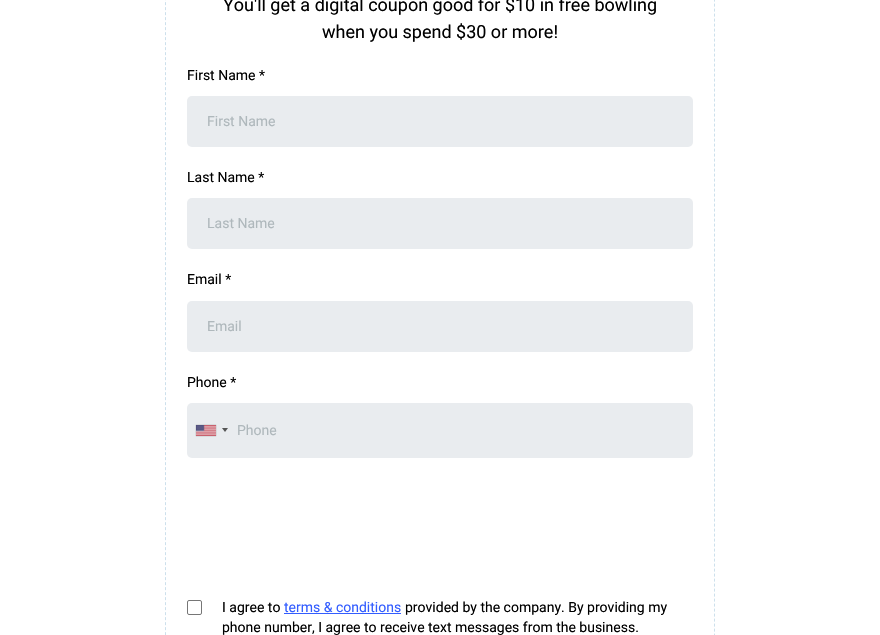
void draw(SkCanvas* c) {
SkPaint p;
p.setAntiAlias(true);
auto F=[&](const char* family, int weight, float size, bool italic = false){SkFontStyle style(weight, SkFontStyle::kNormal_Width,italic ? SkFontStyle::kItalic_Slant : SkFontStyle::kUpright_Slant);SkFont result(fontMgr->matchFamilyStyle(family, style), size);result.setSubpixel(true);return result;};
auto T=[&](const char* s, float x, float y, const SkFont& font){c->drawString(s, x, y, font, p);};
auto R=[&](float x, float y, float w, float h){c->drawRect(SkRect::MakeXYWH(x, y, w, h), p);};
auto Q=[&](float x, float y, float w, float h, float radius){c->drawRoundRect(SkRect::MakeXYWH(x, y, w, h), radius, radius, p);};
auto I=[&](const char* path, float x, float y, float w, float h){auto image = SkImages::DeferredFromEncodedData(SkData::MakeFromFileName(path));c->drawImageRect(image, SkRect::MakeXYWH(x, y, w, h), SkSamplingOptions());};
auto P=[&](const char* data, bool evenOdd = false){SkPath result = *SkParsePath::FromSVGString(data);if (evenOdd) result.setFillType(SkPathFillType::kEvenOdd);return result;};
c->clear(0xffffffff);
p.setStroke(true);
p.setStrokeWidth(1);
p.setColor(0xffcde0ec);
p.setPathEffect(SkDashPathEffect::Make({{3,2}}, 0));
c->drawPath(P("M169-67.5h542c2 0 3.5 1.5 3.5 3.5v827c0 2-1.5 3.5-3.5 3.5h-542c-2 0-3.5-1.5-3.5-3.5v-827c0-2 1.5-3.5 3.5-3.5z"),p);
p.setPathEffect(nullptr);
auto f1 = F("Roboto",400,18);
p.setStroke(false);
p.setColor(0xff000000);
T("You'll get a digital coupon good for $10 in free bowling",223,11,f1);
T("when you spend $30 or more!",322,38,f1);
auto f2 = F("Roboto",400,14);
T("First Name *",187,80,f2);
p.setColor(0xffe9ecef);
Q(187,96,506,51,5);
p.setColor(0xffafb8bc);
T("First Name",207,126,f2);
p.setColor(0xff000000);
T("Last Name *",187,182,f2);
p.setColor(0xffe9ecef);
Q(187,198,506,51,5);
p.setColor(0xffafb8bc);
T("Last Name",207,228,f2);
p.setColor(0xff000000);
T("Email *",187,284,f2);
p.setColor(0xffe9ecef);
Q(187,301,506,51,5);
p.setColor(0xffafb8bc);
T("Email",207,331,f2);
p.setColor(0xff000000);
T("Phone *",187,387,f2);
p.setColor(0xffe9ecef);
Q(187,403,506,55,5);
p.setColor(0xff888888);
p.setMaskFilter(SkMaskFilter::MakeBlur(kNormal_SkBlurStyle, .5));
c->drawRect(SkRect::MakeXYWH(196,425,20,11),p);
p.setMaskFilter(nullptr);
I("1.png",196,425,20,11);
p.setColor(0xff555555);
c->drawPath(P("M222 428h6l-3 4z"),p);
p.setColor(0xffafb8bc);
T("Phone",237,435,f2);
p.setStroke(true);
p.setColor(0xff767676);
c->drawRoundRect(SkRect::MakeXYWH(187.5,600.5,14,14),1.5,1.5,p);
p.setStroke(false);
p.setColor(0xff000000);
T("I agree to",222,612,f2);
p.setColor(0xff335dff);
T("terms & conditions",284,612,f2);
R(284,613,117,1);
p.setColor(0xff000000);
T("provided by the company. By providing my",405,612,f2);
T("phone number, I agree to receive text messages from the business.",222,632,f2);
}
